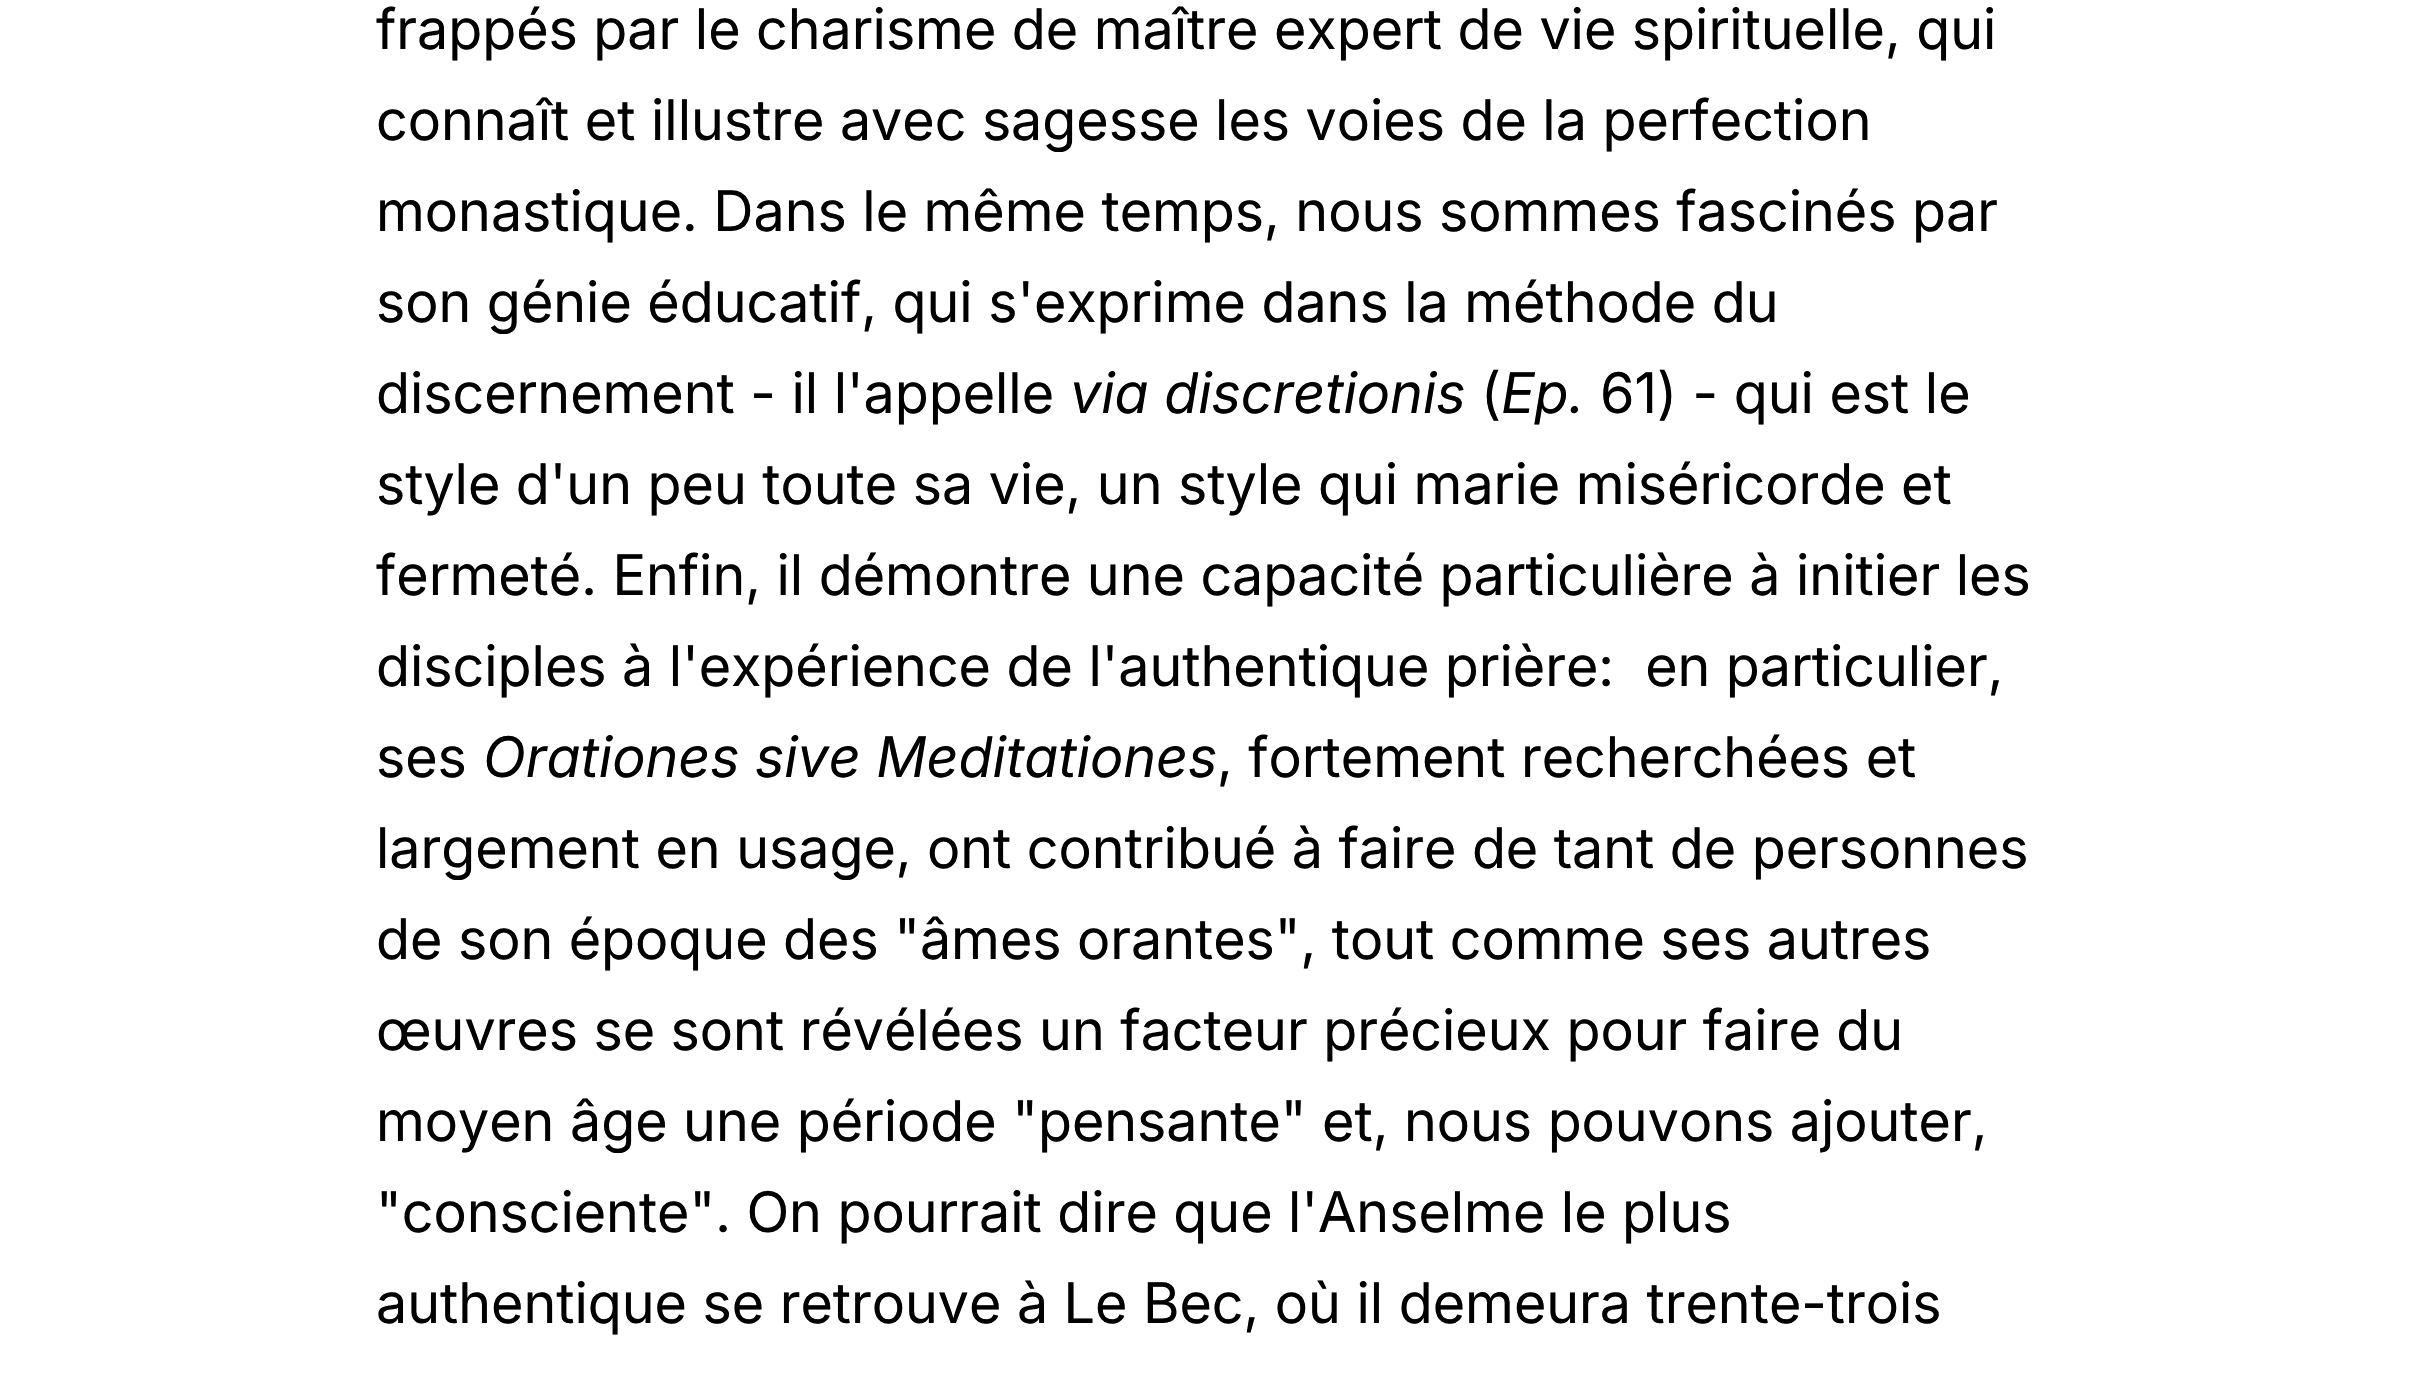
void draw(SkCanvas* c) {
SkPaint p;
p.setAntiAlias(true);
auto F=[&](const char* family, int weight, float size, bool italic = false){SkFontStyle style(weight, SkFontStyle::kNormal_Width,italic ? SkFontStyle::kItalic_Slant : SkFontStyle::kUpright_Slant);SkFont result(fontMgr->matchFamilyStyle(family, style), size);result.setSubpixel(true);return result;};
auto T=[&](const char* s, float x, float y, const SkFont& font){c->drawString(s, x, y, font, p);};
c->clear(0xffffffff);
auto f1 = F("Inter",400,56);
p.setColor(0xff000000);
T("frappés par le charisme de maître expert de vie spirituelle, qui",376,49,f1);
T("connaît et illustre avec sagesse les voies de la perfection",376,140,f1);
T("monastique. Dans le même temps, nous sommes fascinés par",376,231,f1);
T("son génie éducatif, qui s'exprime dans la méthode du",376,322,f1);
T("discernement - il l'appelle",376,413,f1);
auto f2 = F("Inter",400,56,true);
T("via discretionis",1070,413,f2);
T("(",1481,413,f1);
T("Ep.",1501,413,f2);
T("61) - qui est le",1600,413,f1);
T("style d'un peu toute sa vie, un style qui marie miséricorde et",376,504,f1);
T("fermeté. Enfin, il démontre une capacité particulière à initier les",376,595,f1);
T("disciples à l'expérience de l'authentique prière:  en particulier,",376,686,f1);
T("ses",376,777,f1);
T("Orationes sive Meditationes",483,777,f2);
T(", fortement recherchées et",1217,777,f1);
T("largement en usage, ont contribué à faire de tant de personnes",376,868,f1);
T("de son époque des \"âmes orantes\", tout comme ses autres",376,959,f1);
T("œuvres se sont révélées un facteur précieux pour faire du",376,1050,f1);
T("moyen âge une période \"pensante\" et, nous pouvons ajouter,",376,1141,f1);
T("\"consciente\". On pourrait dire que l'Anselme le plus",376,1232,f1);
T("authentique se retrouve à Le Bec, où il demeura trente-trois",376,1323,f1);
}
